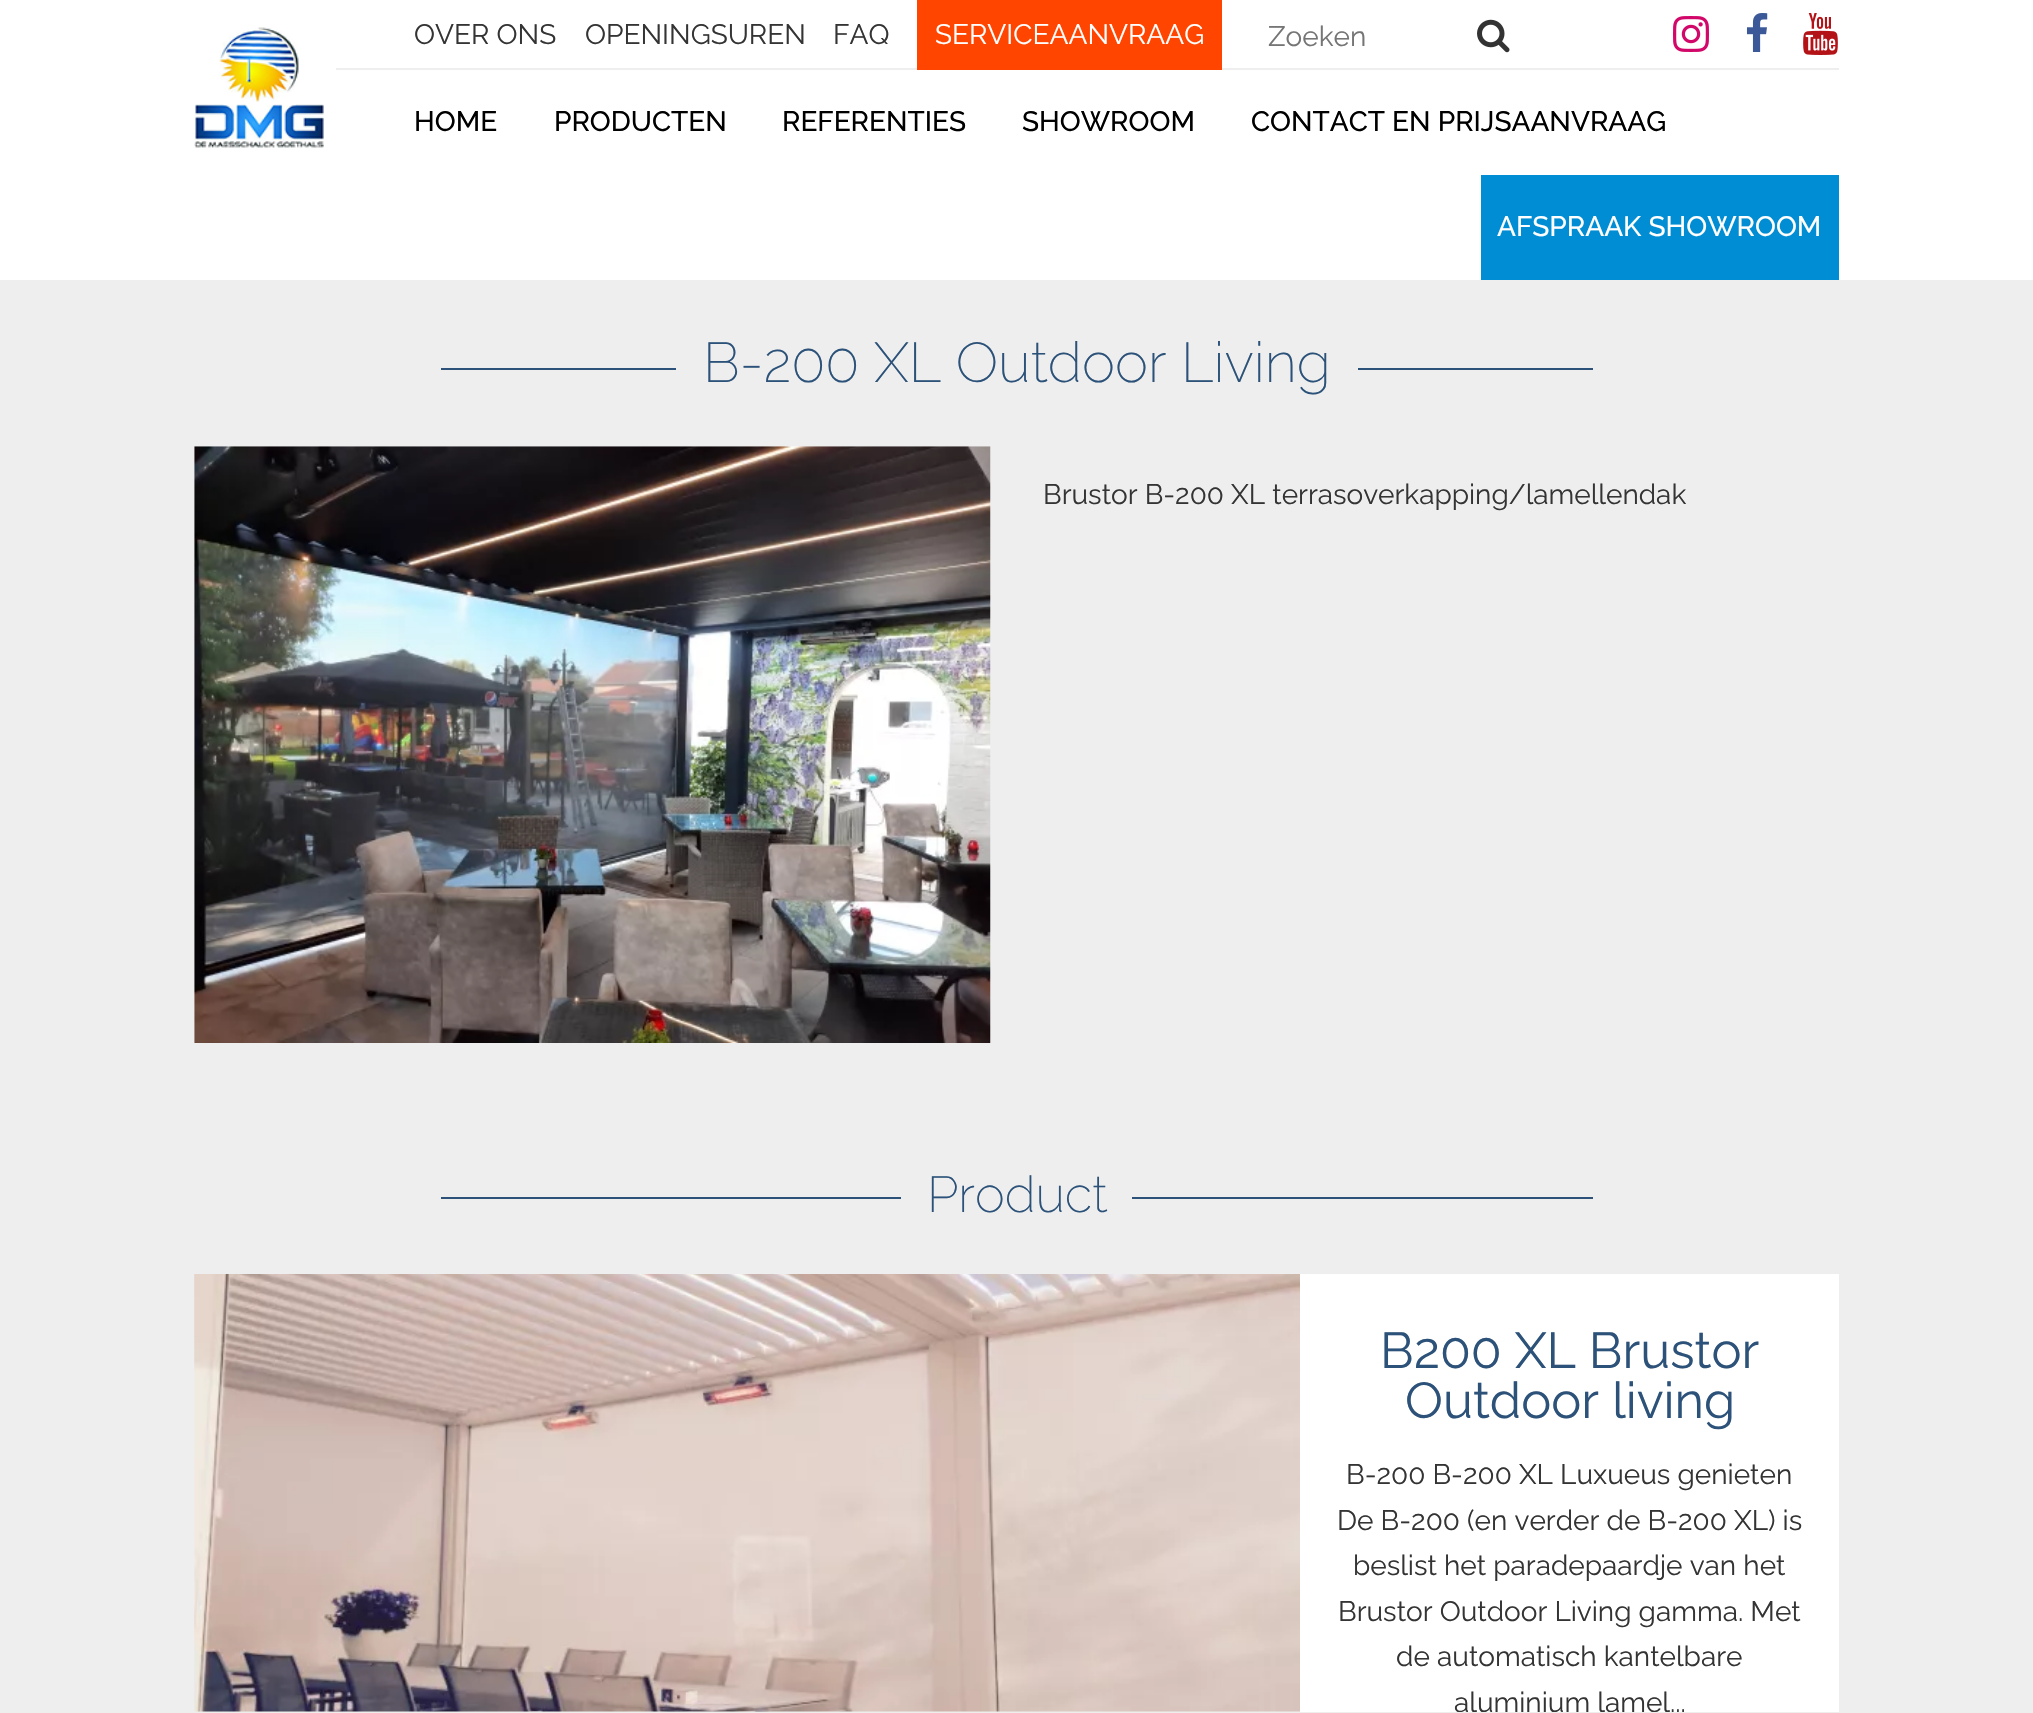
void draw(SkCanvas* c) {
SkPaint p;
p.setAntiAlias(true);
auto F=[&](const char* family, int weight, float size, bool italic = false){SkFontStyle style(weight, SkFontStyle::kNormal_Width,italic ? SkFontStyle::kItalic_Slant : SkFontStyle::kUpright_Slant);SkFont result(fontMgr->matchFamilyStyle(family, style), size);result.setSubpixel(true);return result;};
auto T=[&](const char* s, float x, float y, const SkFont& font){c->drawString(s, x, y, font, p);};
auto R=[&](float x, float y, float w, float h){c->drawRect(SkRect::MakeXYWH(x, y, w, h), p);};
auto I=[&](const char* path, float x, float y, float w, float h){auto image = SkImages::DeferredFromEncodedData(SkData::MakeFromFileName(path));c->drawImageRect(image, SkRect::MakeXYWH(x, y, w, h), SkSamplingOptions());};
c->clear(0xffffffff);
I("1.png",194,27,130,121);
p.setColor(0xffeeeeee);
R(336,68,1503,2);
auto f1 = F("Raleway",400,28);
p.setColor(0xff343434);
T("OVER ONS",414,44,f1);
T("OPENINGSUREN",585,44,f1);
T("FAQ",833,44,f1);
p.setColor(0xffff4500);
R(917,0,305,70);
p.setColor(0xffffffff);
T("SERVICEAANVRAAG",935,44,f1);
p.setColor(0xff757575);
T("Zoeken",1268,46,f1);
I("2.png",1477,19,33,34);
I("3.png",1673,16,36,36);
I("4.png",1746,13,22,39);
I("5.png",1803,13,35,42);
auto f2 = F("Raleway",500,28);
p.setColor(0xff000000);
T("HOME",414,131,f2);
T("PRODUCTEN",554,131,f2);
T("REFERENTIES",782,131,f2);
T("SHOWROOM",1022,131,f2);
T("CONTACT EN PRIJSAANVRAAG",1251,131,f2);
p.setColor(0xff008dd3);
R(1481,175,358,105);
p.setColor(0xffffffff);
T("AFSPRAAK SHOWROOM",1497,236,f2);
p.setColor(0xffeeeeee);
R(0,280,2033,1433);
p.setColor(0xff2c5279);
R(441,368,235,2);
auto f3 = F("Raleway",200,56);
T("B-200 XL Outdoor Living",703,382,f3);
R(1358,368,235,2);
I("6.png",194,446,797,597);
p.setColor(0xff343434);
T("Brustor B-200 XL terrasoverkapping/lamellendak",1043,504,f1);
p.setColor(0xff2c5279);
R(441,1197,460,2);
auto f4 = F("Raleway",200,50.5);
T("Product",927,1212,f4);
R(1132,1197,461,2);
I("7.png",194,1274,1106,438);
p.setColor(0xffffffff);
R(1300,1274,539,438);
auto f5 = F("Raleway",400,50.5);
p.setColor(0xff2c5279);
T("B200 XL Brustor",1380,1368,f5);
T("Outdoor living",1405,1418,f5);
p.setColor(0xff343434);
T("B-200 B-200 XL Luxueus genieten",1346,1484,f1);
T("De B-200 (en verder de B-200 XL) is",1337,1530,f1);
T("beslist het paradepaardje van het",1353,1575,f1);
T("Brustor Outdoor Living gamma. Met",1338,1621,f1);
T("de automatisch kantelbare",1396,1666,f1);
c->save();
c->clipRect(SkRect::MakeXYWH(1300,1274,539,438));
T("aluminium lamel...",1454,1712,f1);
c->restore();
}
